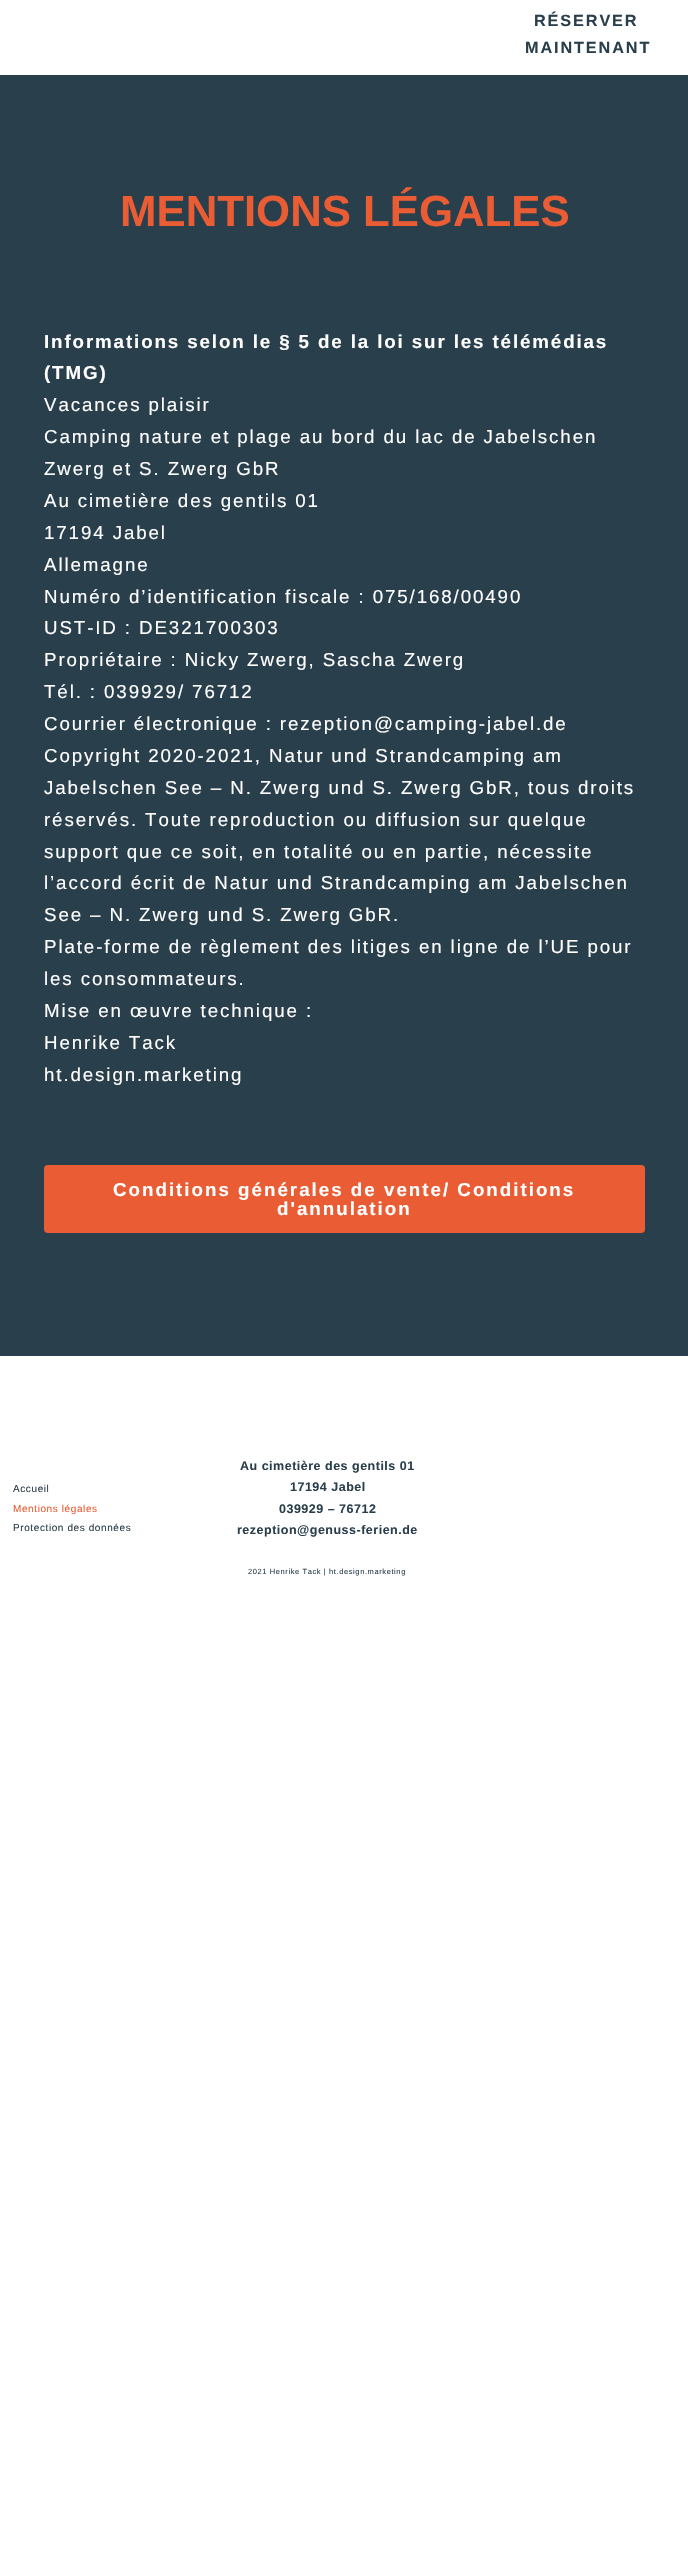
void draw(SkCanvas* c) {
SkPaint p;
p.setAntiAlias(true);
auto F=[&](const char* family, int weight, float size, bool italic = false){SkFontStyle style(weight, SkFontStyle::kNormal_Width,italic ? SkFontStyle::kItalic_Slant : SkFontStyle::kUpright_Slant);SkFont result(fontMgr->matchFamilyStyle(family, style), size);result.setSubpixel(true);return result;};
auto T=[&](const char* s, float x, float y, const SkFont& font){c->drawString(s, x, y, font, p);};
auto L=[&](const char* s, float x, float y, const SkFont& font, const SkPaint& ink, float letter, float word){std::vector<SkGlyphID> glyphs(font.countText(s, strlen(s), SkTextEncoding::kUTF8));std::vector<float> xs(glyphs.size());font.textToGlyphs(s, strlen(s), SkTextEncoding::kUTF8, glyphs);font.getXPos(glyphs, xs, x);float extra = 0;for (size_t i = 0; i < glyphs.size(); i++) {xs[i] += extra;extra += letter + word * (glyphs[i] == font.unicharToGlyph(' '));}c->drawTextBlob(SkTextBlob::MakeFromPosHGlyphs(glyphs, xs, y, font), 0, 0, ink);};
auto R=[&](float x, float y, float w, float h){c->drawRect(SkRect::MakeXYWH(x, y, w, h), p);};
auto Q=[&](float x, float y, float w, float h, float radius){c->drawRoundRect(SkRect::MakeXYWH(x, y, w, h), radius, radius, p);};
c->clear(0xffffffff);
p.setColor(0xff2a3f4c);
R(0,75,688,1281);
auto f1 = F("Liberation Sans",700,16.25);
L("RÉSERVER",534,26,f1,p,1.88,0);
L("MAINTENANT",525,53,f1,p,1.88,0);
auto f2 = F("Liberation Sans",700,43.75);
p.setColor(0xffea5c34);
T("MENTIONS LÉGALES",120,226,f2);
auto f3 = F("Liberation Sans",700,18.75);
p.setColor(0xffffffff);
L("Informations selon le § 5 de la loi sur les télémédias",44,348,f3,p,1.88,0);
L("(TMG)",44,379,f3,p,1.88,0);
auto f4 = F("Liberation Sans",400,18.75);
L("Vacances plaisir",44,411,f4,p,1.88,0);
L("Camping nature et plage au bord du lac de Jabelschen",44,443,f4,p,1.88,0);
L("Zwerg et S. Zwerg GbR",44,475,f4,p,1.88,0);
L("Au cimetière des gentils 01",44,507,f4,p,1.88,0);
L("17194 Jabel",44,539,f4,p,1.88,0);
L("Allemagne",44,571,f4,p,1.88,0);
L("Numéro d’identification fiscale : 075/168/00490",44,603,f4,p,1.88,0);
L("UST-ID : DE321700303",44,634,f4,p,1.88,0);
L("Propriétaire : Nicky Zwerg, Sascha Zwerg",44,666,f4,p,1.88,0);
L("Tél. : 039929/ 76712",44,698,f4,p,1.88,0);
L("Courrier électronique : rezeption@camping-jabel.de",44,730,f4,p,1.88,0);
L("Copyright 2020-2021, Natur und Strandcamping am",44,762,f4,p,1.88,0);
L("Jabelschen See – N. Zwerg und S. Zwerg GbR, tous droits",44,794,f4,p,1.88,0);
L("réservés. Toute reproduction ou diffusion sur quelque",44,826,f4,p,1.88,0);
L("support que ce soit, en totalité ou en partie, nécessite",44,858,f4,p,1.88,0);
L("l’accord écrit de Natur und Strandcamping am Jabelschen",44,889,f4,p,1.88,0);
L("See – N. Zwerg und S. Zwerg GbR.",44,921,f4,p,1.88,0);
L("Plate-forme de règlement des litiges en ligne de l’UE pour",44,953,f4,p,1.88,0);
L("les consommateurs.",44,985,f4,p,1.88,0);
L("Mise en œuvre technique :",44,1017,f4,p,1.88,0);
L("Henrike Tack",44,1049,f4,p,1.88,0);
L("ht.design.marketing",44,1081,f4,p,1.88,0);
p.setColor(0xffea5c34);
Q(44,1165,601,68,4);
p.setColor(0xffffffff);
L("Conditions générales de vente/ Conditions",113,1196,f3,p,2,0);
L("d'annulation",277,1215,f3,p,2,0);
auto f5 = F("Liberation Sans",400,10);
p.setColor(0xff2a3f4c);
L("Accueil",13,1492,f5,p,.6,0);
p.setColor(0xffea5c34);
L("Mentions légales",13,1512,f5,p,.6,0);
p.setColor(0xff2a3f4c);
L("Protection des données",13,1531,f5,p,.6,0);
auto f6 = F("Liberation Sans",700,12.5);
L("Au cimetière des gentils 01",240,1470,f6,p,.5,0);
L("17194 Jabel",290,1491,f6,p,.5,0);
L("039929 – 76712",279,1513,f6,p,.5,0);
L("rezeption@genuss-ferien.de",237,1534,f6,p,.5,0);
auto f7 = F("Liberation Sans",400,7.5);
L("2021 Henrike Tack | ht.design.marketing",248,1574,f7,p,.6,0);
}
